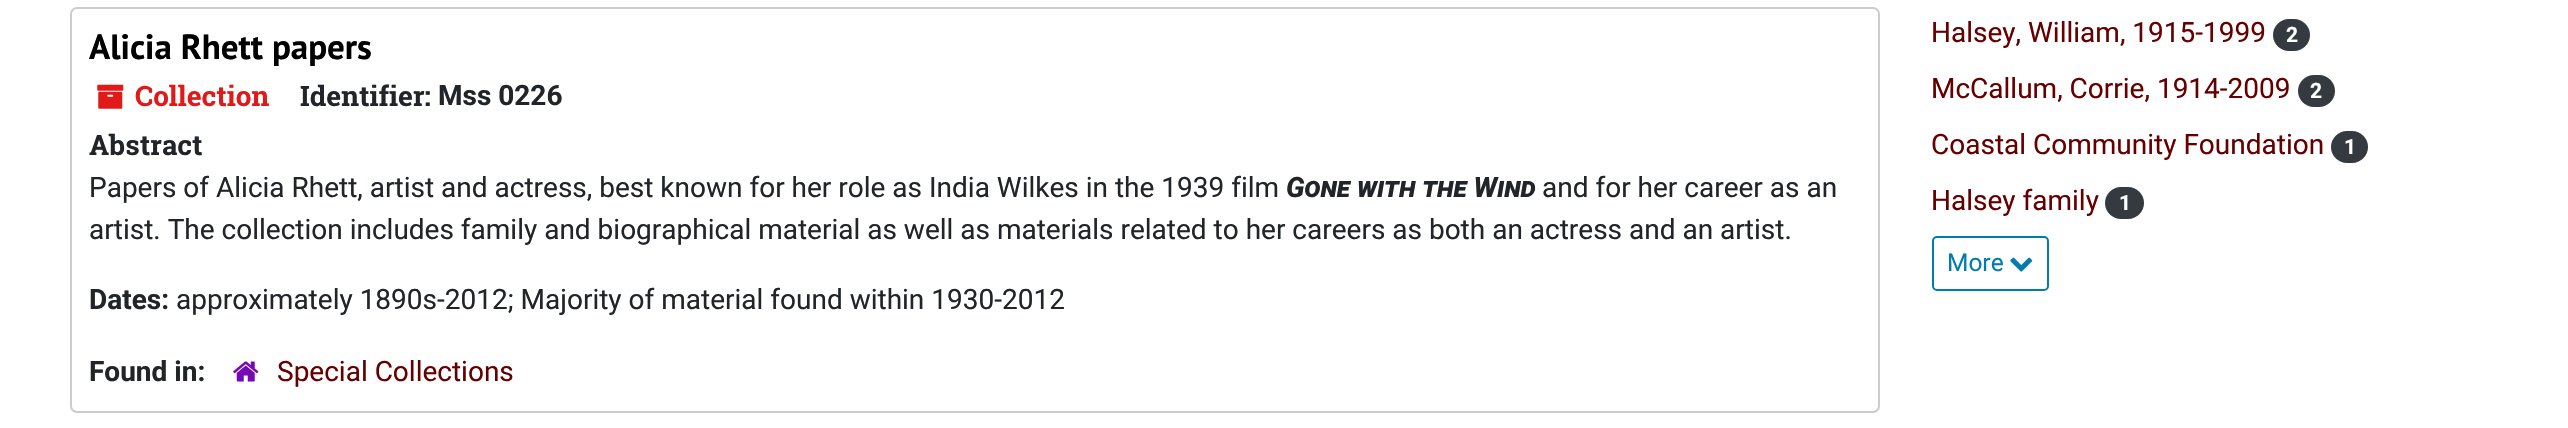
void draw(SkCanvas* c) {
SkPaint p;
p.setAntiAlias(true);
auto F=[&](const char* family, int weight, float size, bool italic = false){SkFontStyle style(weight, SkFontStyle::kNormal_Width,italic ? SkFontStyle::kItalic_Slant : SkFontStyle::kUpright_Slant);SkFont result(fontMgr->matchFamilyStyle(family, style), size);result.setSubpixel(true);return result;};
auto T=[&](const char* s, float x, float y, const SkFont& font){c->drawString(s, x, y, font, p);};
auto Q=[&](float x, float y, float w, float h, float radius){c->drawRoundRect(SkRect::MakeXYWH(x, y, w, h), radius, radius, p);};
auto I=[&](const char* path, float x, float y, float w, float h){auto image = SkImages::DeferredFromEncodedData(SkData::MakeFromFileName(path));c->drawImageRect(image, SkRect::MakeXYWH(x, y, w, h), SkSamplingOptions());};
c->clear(0xffffffff);
p.setStroke(true);
p.setStrokeWidth(2);
p.setColor(0xffcccccc);
c->drawRoundRect(SkRect::MakeXYWH(71,8,1808,404),6,6,p);
auto f1 = F("PT Sans",700,35);
p.setStroke(false);
p.setColor(0xff000000);
T("Alicia Rhett papers",89,59,f1);
I("1.png",97,84,27,25);
auto f2 = F("Roboto Slab",700,28);
p.setColor(0xffe01919);
T("Collection",135,106,f2);
p.setColor(0xff212529);
T("Identifier:",300,106,f2);
auto f3 = F("Roboto",700,28);
T("Mss 0226",438,105,f3);
T("Abstract",89,155,f2);
auto f4 = F("Roboto",400,28);
T("Papers of Alicia Rhett, artist and actress, best known for her role as India Wilkes in the 1939 film",89,197,f4);
auto f5 = F("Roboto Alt",800,28,true);
T("Gone with the Wind",1286,197,f5);
T("and for her career as an",1542,197,f4);
T("artist. The collection includes family and biographical material as well as materials related to her careers as both an actress and an artist.",89,239,f4);
T("Dates:",89,309,f3);
T("approximately 1890s-2012; Majority of material found within 1930-2012",176,309,f4);
T("Found in:",89,381,f3);
I("2.png",233,361,26,21);
p.setColor(0xff660000);
T("Special Collections",277,381,f4);
T("Halsey, William, 1915-1999",1931,42,f4);
p.setColor(0xff343a40);
Q(2273,19,37,32,16);
auto f6 = F("Roboto",700,21);
p.setColor(0xffffffff);
T("2",2286,42,f6);
p.setColor(0xff660000);
T("McCallum, Corrie, 1914-2009",1931,98,f4);
p.setColor(0xff343a40);
Q(2298,75,37,32,16);
p.setColor(0xffffffff);
T("2",2310,98,f6);
p.setColor(0xff660000);
T("Coastal Community Foundation",1931,154,f4);
p.setColor(0xff343a40);
Q(2331,131,37,32,16);
p.setColor(0xffffffff);
T("1",2344,154,f6);
p.setColor(0xff660000);
T("Halsey family",1931,210,f4);
p.setColor(0xff343a40);
Q(2105,187,39,32,16);
p.setColor(0xffffffff);
T("1",2119,210,f6);
p.setStroke(true);
p.setColor(0xff007cad);
c->drawRoundRect(SkRect::MakeXYWH(1933,237,115,53),4,4,p);
auto f7 = F("Roboto",400,24.5);
p.setStroke(false);
T("More",1947,271,f7);
I("3.png",2010,257,23,15);
}
